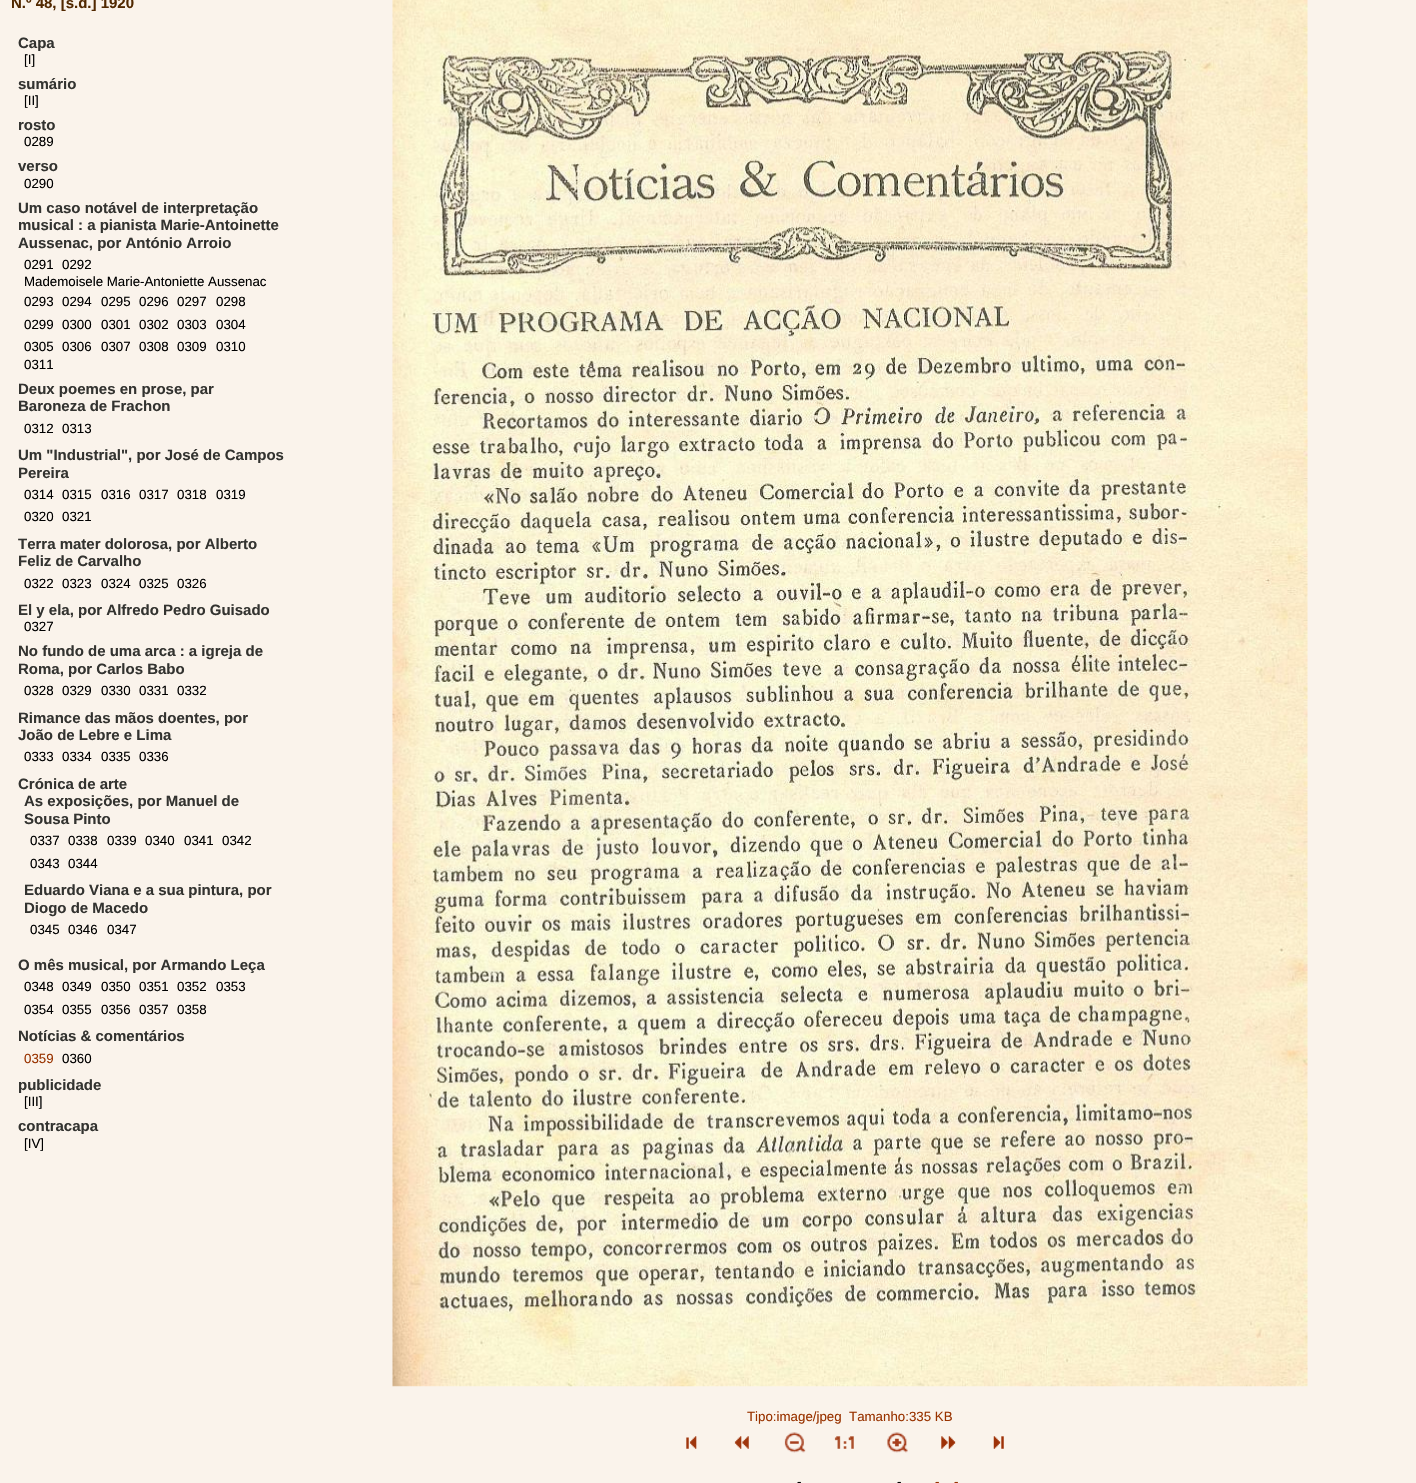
void draw(SkCanvas* c) {
SkPaint p;
p.setAntiAlias(true);
auto F=[&](const char* family, int weight, float size, bool italic = false){SkFontStyle style(weight, SkFontStyle::kNormal_Width,italic ? SkFontStyle::kItalic_Slant : SkFontStyle::kUpright_Slant);SkFont result(fontMgr->matchFamilyStyle(family, style), size);result.setSubpixel(true);return result;};
auto T=[&](const char* s, float x, float y, const SkFont& font){c->drawString(s, x, y, font, p);};
auto I=[&](const char* path, float x, float y, float w, float h){auto image = SkImages::DeferredFromEncodedData(SkData::MakeFromFileName(path));c->drawImageRect(image, SkRect::MakeXYWH(x, y, w, h), SkSamplingOptions());};
c->clear(0xfffaf3eb);
auto f1 = F("Liberation Sans",700,15);
p.setColor(0xff512800);
T("N.º 48, [s.d.] 1920",11,8,f1);
p.setColor(0xff333330);
T("Capa",18,48,f1);
auto f2 = F("Liberation Sans",400,13.3);
p.setColor(0xff000000);
T("[I]",24,64,f2);
p.setColor(0xff333330);
T("sumário",18,89,f1);
p.setColor(0xff000000);
T("[II]",24,105,f2);
p.setColor(0xff333330);
T("rosto",18,130,f1);
p.setColor(0xff000000);
T("0289",24,146,f2);
p.setColor(0xff333330);
T("verso",18,171,f1);
p.setColor(0xff000000);
T("0290",24,188,f2);
p.setColor(0xff333330);
T("Um caso notável de interpretação",18,213,f1);
T("musical : a pianista Marie-Antoinette",18,230,f1);
T("Aussenac, por António Arroio",18,248,f1);
p.setColor(0xff000000);
T("0291",24,269,f2);
T("0292",62,269,f2);
T("Mademoisele Marie-Antoniette Aussenac",24,286,f2);
T("0293",24,306,f2);
T("0294",62,306,f2);
T("0295",101,306,f2);
T("0296",139,306,f2);
T("0297",177,306,f2);
T("0298",216,306,f2);
T("0299",24,329,f2);
T("0300",62,329,f2);
T("0301",101,329,f2);
T("0302",139,329,f2);
T("0303",177,329,f2);
T("0304",216,329,f2);
T("0305",24,351,f2);
T("0306",62,351,f2);
T("0307",101,351,f2);
T("0308",139,351,f2);
T("0309",177,351,f2);
T("0310",216,351,f2);
T("0311",24,369,f2);
p.setColor(0xff333330);
T("Deux poemes en prose, par",18,394,f1);
T("Baroneza de Frachon",18,411,f1);
p.setColor(0xff000000);
T("0312",24,433,f2);
T("0313",62,433,f2);
p.setColor(0xff333330);
T("Um \"Industrial\", por José de Campos",18,460,f1);
T("Pereira",18,478,f1);
p.setColor(0xff000000);
T("0314",24,499,f2);
T("0315",62,499,f2);
T("0316",101,499,f2);
T("0317",139,499,f2);
T("0318",177,499,f2);
T("0319",216,499,f2);
T("0320",24,521,f2);
T("0321",62,521,f2);
p.setColor(0xff333330);
T("Terra mater dolorosa, por Alberto",18,549,f1);
T("Feliz de Carvalho",18,566,f1);
p.setColor(0xff000000);
T("0322",24,588,f2);
T("0323",62,588,f2);
T("0324",101,588,f2);
T("0325",139,588,f2);
T("0326",177,588,f2);
p.setColor(0xff333330);
T("El y ela, por Alfredo Pedro Guisado",18,615,f1);
p.setColor(0xff000000);
T("0327",24,631,f2);
p.setColor(0xff333330);
T("No fundo de uma arca : a igreja de",18,656,f1);
T("Roma, por Carlos Babo",18,674,f1);
p.setColor(0xff000000);
T("0328",24,695,f2);
T("0329",62,695,f2);
T("0330",101,695,f2);
T("0331",139,695,f2);
T("0332",177,695,f2);
p.setColor(0xff333330);
T("Rimance das mãos doentes, por",18,723,f1);
T("João de Lebre e Lima",18,740,f1);
p.setColor(0xff000000);
T("0333",24,761,f2);
T("0334",62,761,f2);
T("0335",101,761,f2);
T("0336",139,761,f2);
p.setColor(0xff333330);
T("Crónica de arte",18,789,f1);
T("As exposições, por Manuel de",24,806,f1);
T("Sousa Pinto",24,824,f1);
p.setColor(0xff000000);
T("0337",30,845,f2);
T("0338",68,845,f2);
T("0339",107,845,f2);
T("0340",145,845,f2);
T("0341",184,845,f2);
T("0342",222,845,f2);
T("0343",30,868,f2);
T("0344",68,868,f2);
p.setColor(0xff333330);
T("Eduardo Viana e a sua pintura, por",24,895,f1);
T("Diogo de Macedo",24,913,f1);
p.setColor(0xff000000);
T("0345",30,934,f2);
T("0346",68,934,f2);
T("0347",107,934,f2);
p.setColor(0xff333330);
T("O mês musical, por Armando Leça",18,970,f1);
p.setColor(0xff000000);
T("0348",24,991,f2);
T("0349",62,991,f2);
T("0350",101,991,f2);
T("0351",139,991,f2);
T("0352",177,991,f2);
T("0353",216,991,f2);
T("0354",24,1014,f2);
T("0355",62,1014,f2);
T("0356",101,1014,f2);
T("0357",139,1014,f2);
T("0358",177,1014,f2);
p.setColor(0xff333330);
T("Notícias & comentários",18,1041,f1);
p.setColor(0xff993300);
T("0359",24,1063,f2);
p.setColor(0xff000000);
T("0360",62,1063,f2);
p.setColor(0xff333330);
T("publicidade",18,1090,f1);
p.setColor(0xff000000);
T("[III]",24,1106,f2);
p.setColor(0xff333330);
T("contracapa",18,1131,f1);
p.setColor(0xff000000);
T("[IV]",24,1148,f2);
I("1.png",392,0,916,1387);
p.setColor(0xff993300);
T("Tipo:image/jpeg  Tamanho:335 KB",747,1421,f2);
I("2.png",686,1436,11,13);
I("3.png",734,1436,15,13);
I("4.png",784,1432,22,21);
I("5.png",834,1436,20,13);
I("6.png",887,1432,21,21);
I("7.png",941,1436,15,13);
I("8.png",993,1436,11,13);
p.setColor(0xff000000);
T("-",797,1486,f2);
T("-",897,1486,f2);
p.setColor(0xff993300);
T("-",935,1486,f2);
T("-",954,1486,f2);
}
